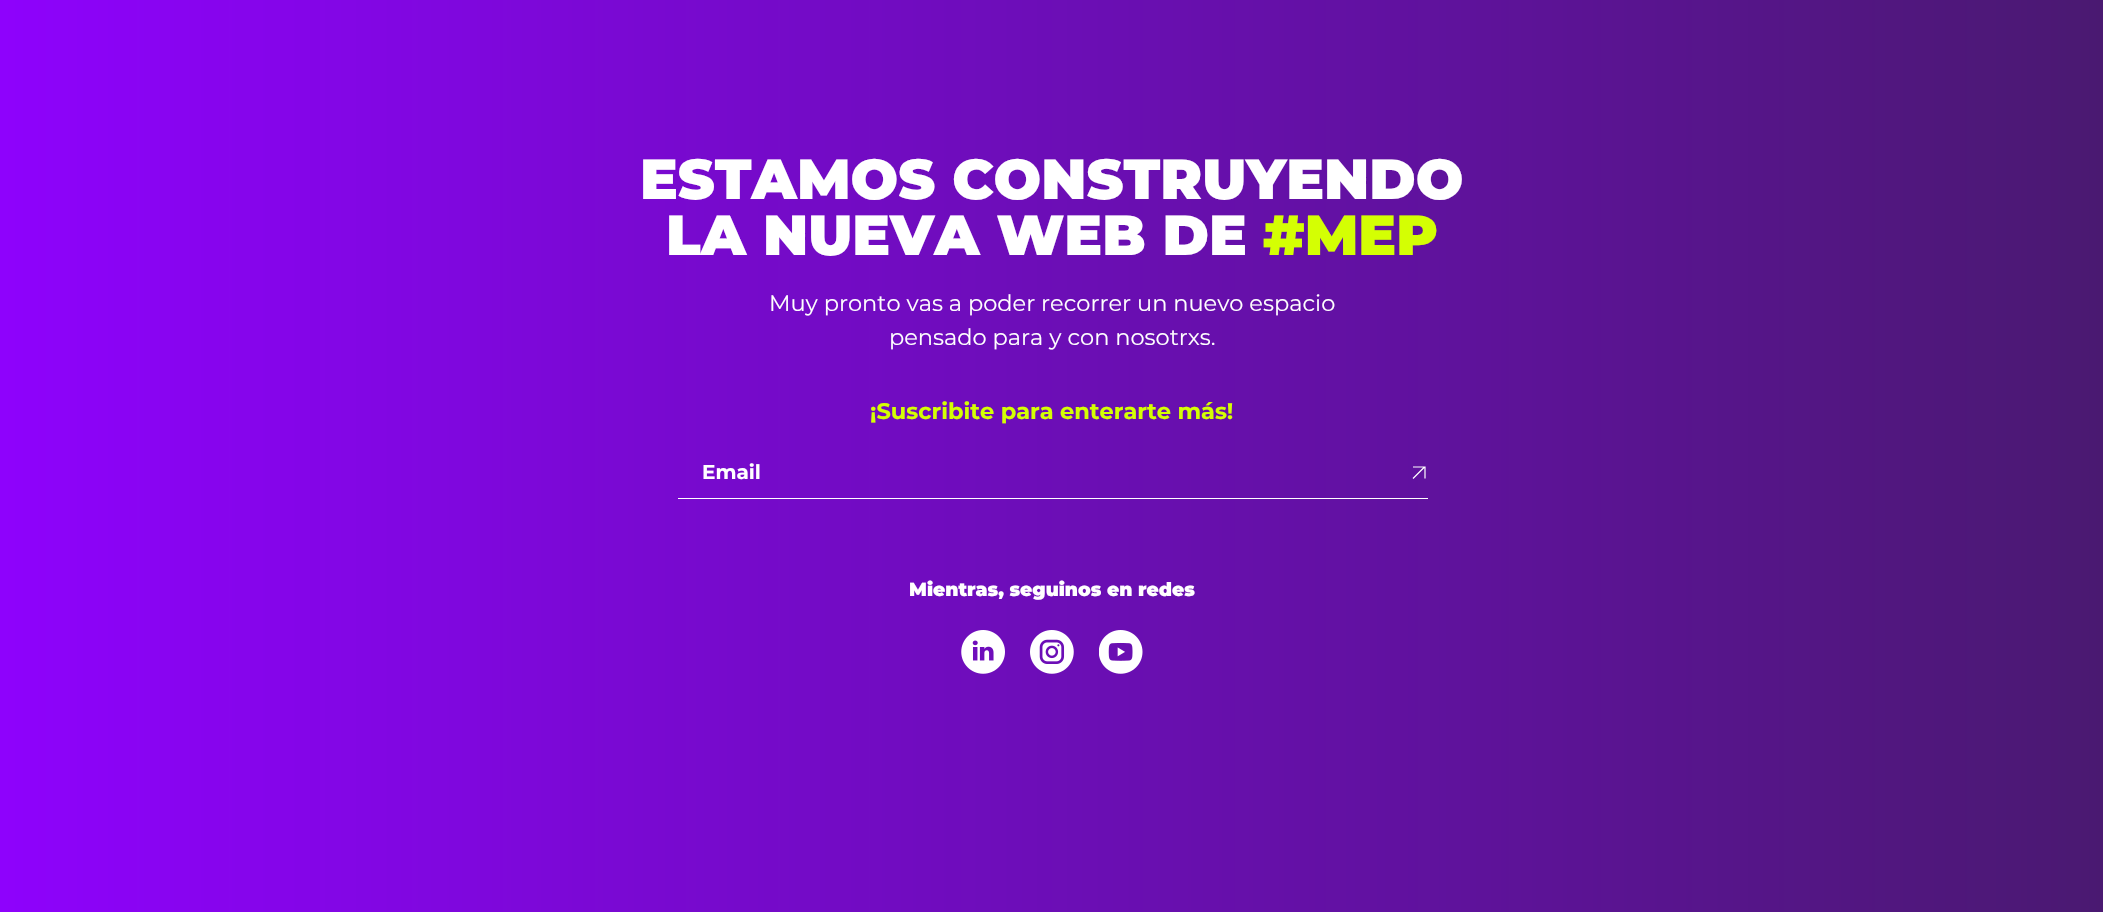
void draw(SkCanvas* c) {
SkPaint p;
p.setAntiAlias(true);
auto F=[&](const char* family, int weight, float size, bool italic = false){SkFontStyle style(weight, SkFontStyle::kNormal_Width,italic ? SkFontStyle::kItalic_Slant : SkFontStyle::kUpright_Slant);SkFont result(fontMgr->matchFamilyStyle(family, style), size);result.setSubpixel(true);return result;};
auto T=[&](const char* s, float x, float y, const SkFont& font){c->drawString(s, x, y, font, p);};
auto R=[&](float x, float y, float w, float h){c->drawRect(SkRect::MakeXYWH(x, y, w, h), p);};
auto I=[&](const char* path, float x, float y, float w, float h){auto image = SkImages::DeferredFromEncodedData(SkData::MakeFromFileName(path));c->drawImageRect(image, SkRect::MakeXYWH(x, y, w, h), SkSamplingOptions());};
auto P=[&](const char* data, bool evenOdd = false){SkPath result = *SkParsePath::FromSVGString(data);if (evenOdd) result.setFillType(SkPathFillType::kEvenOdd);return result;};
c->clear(0xffffffff);
{
const SkColor colors[] = {0xff8e02fc,0xff4a1971};
const float stops[] = {0,1};
const SkPoint ends[] = {{0,343}, {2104,343}};
p.setShader(SkGradientShader::MakeLinear(ends, colors, stops, 2, SkTileMode::kClamp));
p.setAlpha(255);
}
R(0,0,2103,912);
auto f1 = F("Montserrat",900,56.25);
p.setShader(nullptr);
p.setColor(0xffffffff);
T("ESTAMOS CONSTRUYENDO",640,199,f1);
T("LA NUEVA WEB DE",666,255,f1);
p.setColor(0xffd4ff03);
T("#MEP",1263,255,f1);
auto f2 = F("Montserrat",400,22.5);
p.setColor(0xffffffff);
T("Muy pronto vas a poder recorrer un nuevo espacio",769,311,f2);
T("pensado para y con nosotrxs.",889,345,f2);
auto f3 = F("Montserrat",700,22.5);
p.setColor(0xffd4ff03);
T("¡Suscribite para enterarte más!",870,419,f3);
p.setColor(0xffffffff);
R(678,498,750,1);
auto f4 = F("Montserrat",700,20);
T("Email",702,479,f4);
p.setStroke(true);
p.setStrokeWidth(1.2);
c->drawPath(P("M1413 467h12v11.5m-.5-11.5l-11.5 11.5"),p);
auto f5 = F("Montserrat",900,18.75);
p.setStroke(false);
T("Mientras, seguinos en redes",909,596,f5);
I("1.png",961,630,44,44);
I("2.png",1030,630,44,44);
I("3.png",1099,630,44,44);
}
